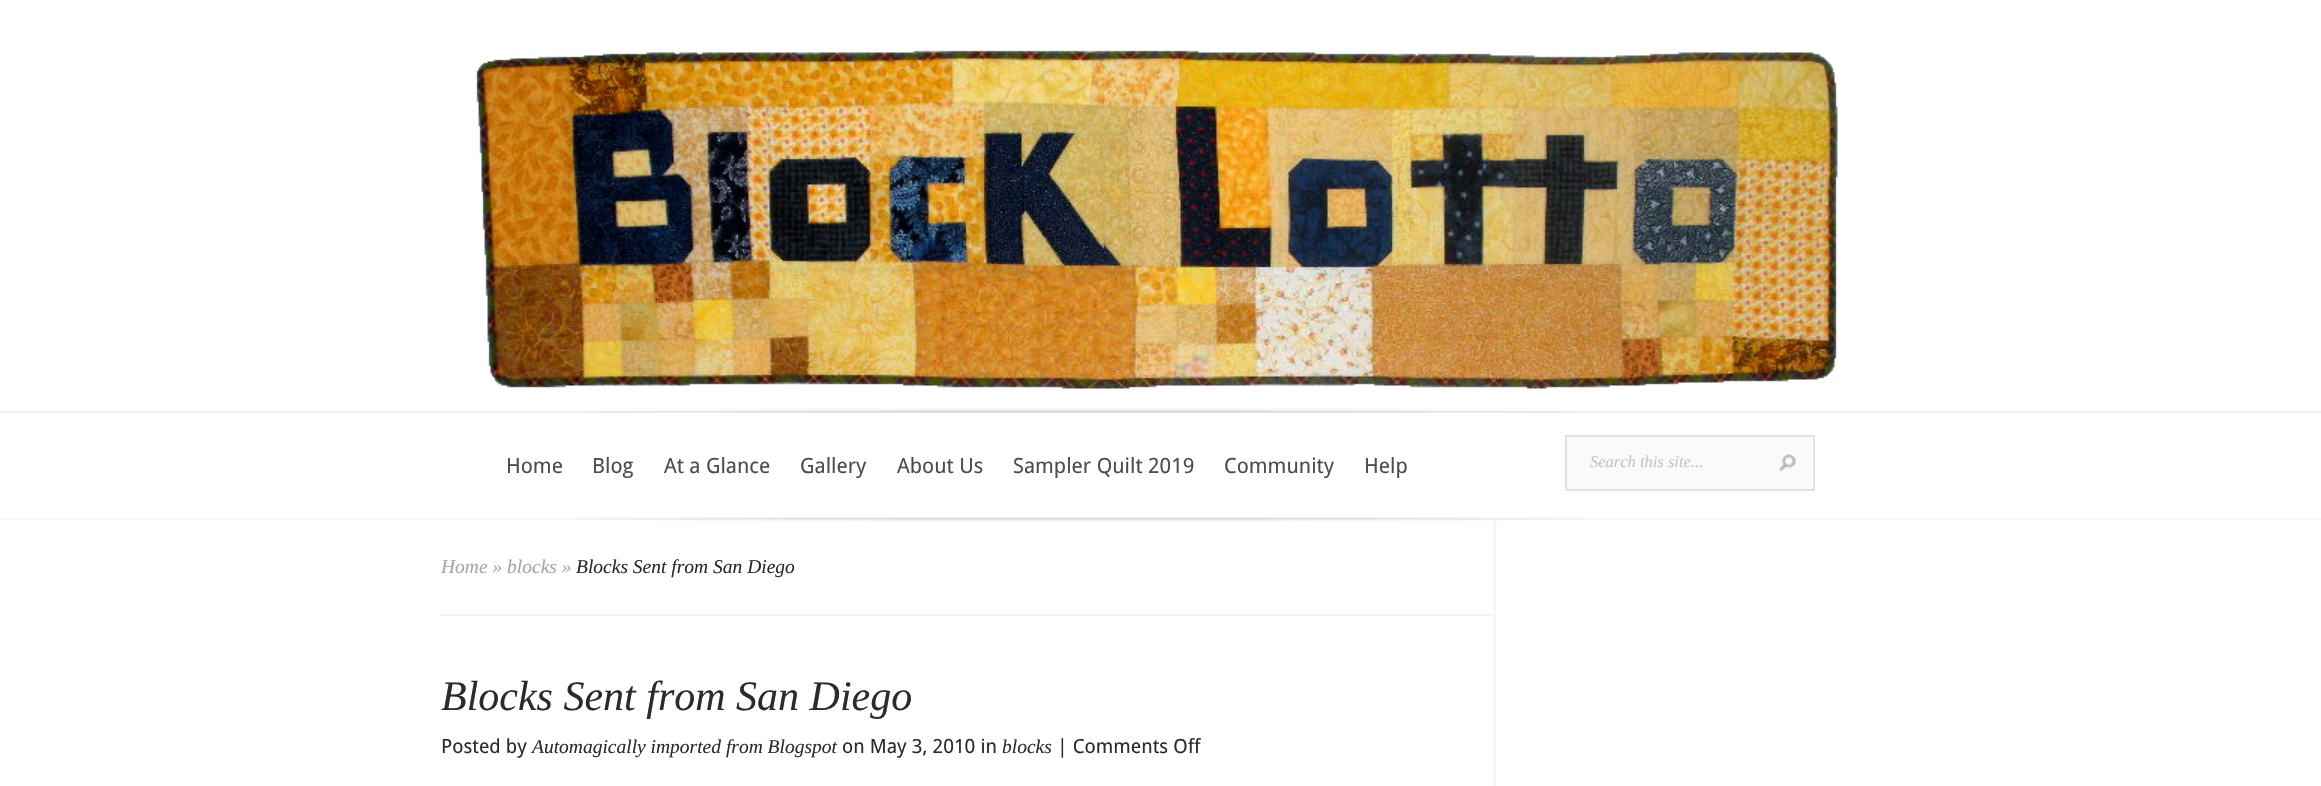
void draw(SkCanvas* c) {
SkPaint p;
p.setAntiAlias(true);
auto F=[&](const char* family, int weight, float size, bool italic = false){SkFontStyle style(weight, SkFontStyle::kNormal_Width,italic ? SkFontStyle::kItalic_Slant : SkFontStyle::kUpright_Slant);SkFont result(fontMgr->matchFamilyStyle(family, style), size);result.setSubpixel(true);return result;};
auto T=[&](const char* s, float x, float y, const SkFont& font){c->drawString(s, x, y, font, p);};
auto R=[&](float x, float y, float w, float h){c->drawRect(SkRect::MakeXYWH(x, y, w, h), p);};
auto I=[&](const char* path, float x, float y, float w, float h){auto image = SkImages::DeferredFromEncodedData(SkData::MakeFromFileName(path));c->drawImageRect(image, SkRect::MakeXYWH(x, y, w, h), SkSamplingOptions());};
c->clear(0xffffffff);
I("1.png",476,50,1362,339);
p.setColor(0xfff1f1f1);
R(0,411,2321,2);
p.setColor(0xfff6f6f6);
R(0,518,2321,2);
I("2.png",581,408,996,5);
auto f1 = F("Droid Sans",400,21);
p.setColor(0xff4d4d4d);
T("Home",506,473,f1);
T("Blog",592,473,f1);
T("At a Glance",664,473,f1);
T("Gallery",800,473,f1);
T("About Us",897,473,f1);
T("Sampler Quilt 2019",1013,473,f1);
T("Community",1224,473,f1);
T("Help",1364,473,f1);
p.setColor(0xfffafafa);
c->drawRect(SkRect::MakeXYWH(1566,436,248,54),p);
p.setStroke(true);
p.setStrokeWidth(2);
p.setColor(0xffe2e2e2);
c->drawRect(SkRect::MakeXYWH(1566,436,248,54),p);
auto f2 = F("Liberation Serif",400,16.5,true);
p.setStroke(false);
p.setColor(0xffc5c5c5);
T("Search this site...",1590,467,f2);
I("3.png",1779,453,17,18);
I("4.png",581,517,997,5);
I("5.png",1494,520,2,266);
p.setColor(0xfff1f1f1);
R(441,614,1053,2);
auto f3 = F("Liberation Serif",400,19.5,true);
p.setColor(0xffa6a6a6);
T("Home » blocks »",441,573,f3);
p.setColor(0xff2b2b2b);
T("Blocks Sent from San Diego",576,573,f3);
auto f4 = F("Liberation Serif",400,42,true);
T("Blocks Sent from San Diego",441,710,f4);
auto f5 = F("Droid Sans",400,19.5);
T("Posted by",441,753,f5);
T("Automagically imported from Blogspot",532,753,f3);
T("on May 3, 2010 in",842,753,f5);
T("blocks",1002,753,f3);
T("| Comments Off",1057,753,f5);
}
